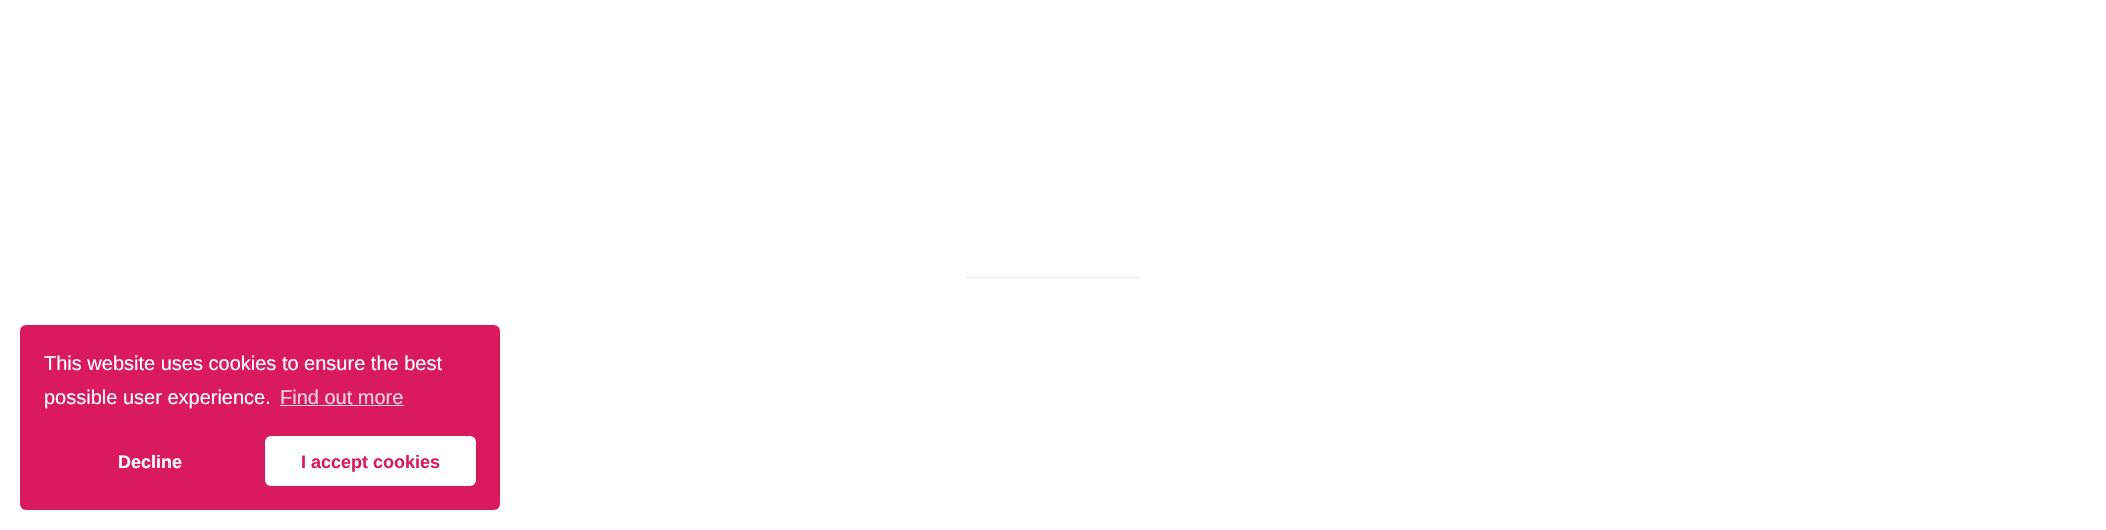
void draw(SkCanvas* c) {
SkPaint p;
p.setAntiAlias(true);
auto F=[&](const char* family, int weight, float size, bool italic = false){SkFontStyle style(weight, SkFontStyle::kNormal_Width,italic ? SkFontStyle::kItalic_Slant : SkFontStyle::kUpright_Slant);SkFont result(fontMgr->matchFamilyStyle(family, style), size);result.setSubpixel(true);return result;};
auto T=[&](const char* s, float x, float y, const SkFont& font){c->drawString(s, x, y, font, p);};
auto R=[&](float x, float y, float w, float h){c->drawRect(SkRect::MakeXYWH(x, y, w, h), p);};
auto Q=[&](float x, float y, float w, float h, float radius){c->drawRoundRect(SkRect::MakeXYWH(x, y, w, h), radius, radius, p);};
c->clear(0xffffffff);
p.setColor(0xfff7f7f7);
R(966,276,175,3);
p.setColor(0xffd91a5d);
Q(20,325,480,185,6);
auto f1 = F("Liberation Sans",400,20);
p.setColor(0xffffffff);
T("This website uses cookies to ensure the best",44,370,f1);
T("possible user experience.",44,404,f1);
p.setColor(0xfff7d1df);
T("Find out more",280,404,f1);
R(280,405,124,1);
auto f2 = F("Liberation Sans",700,18);
p.setColor(0xffffffff);
T("Decline",118,468,f2);
Q(265,436,211,50,6);
p.setColor(0xffd91a5d);
T("I accept cookies",301,468,f2);
}
